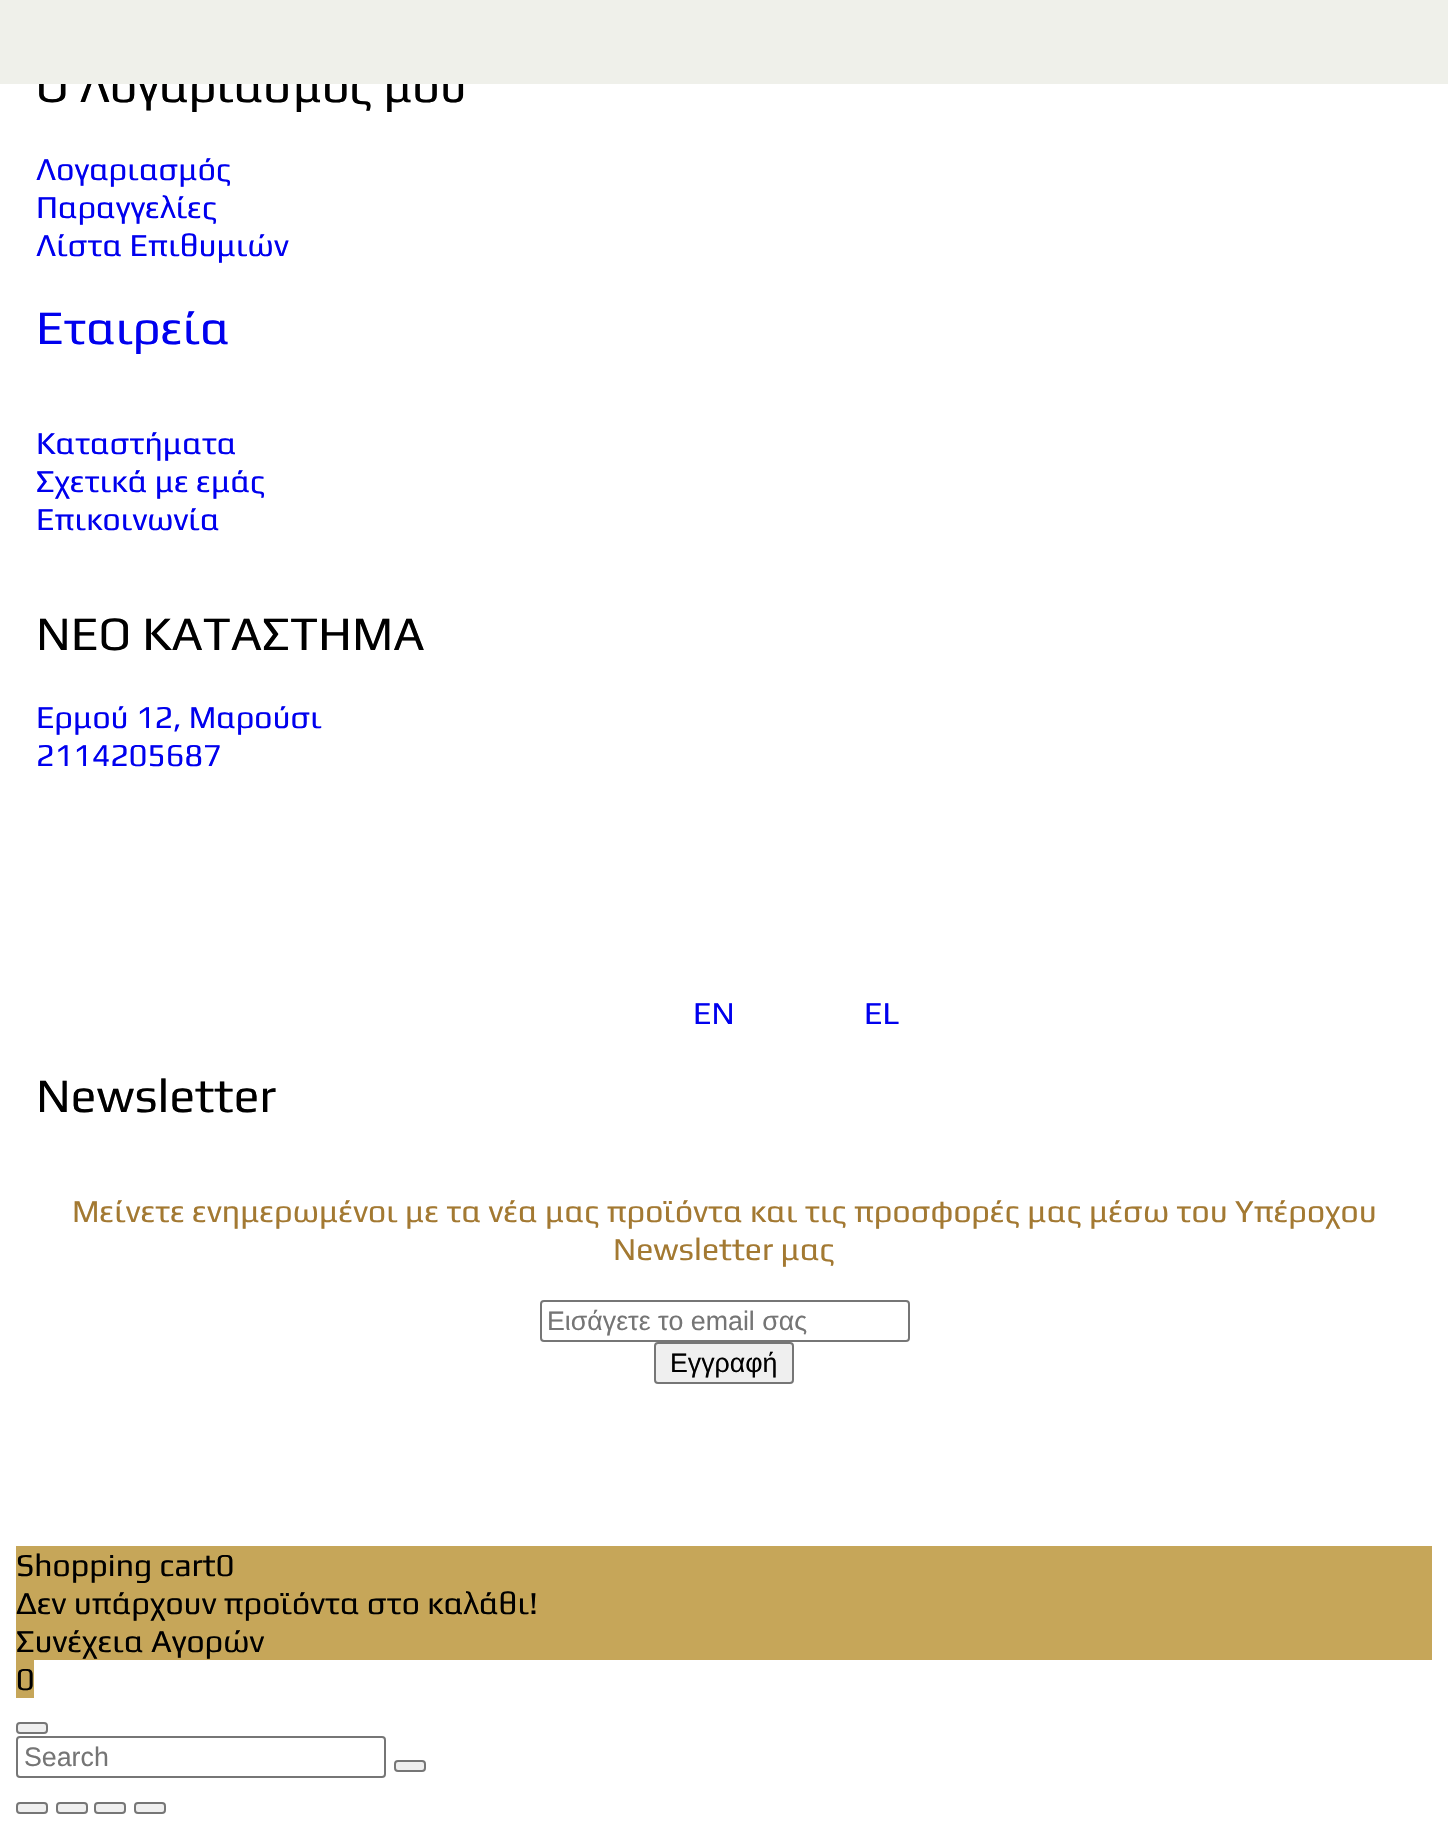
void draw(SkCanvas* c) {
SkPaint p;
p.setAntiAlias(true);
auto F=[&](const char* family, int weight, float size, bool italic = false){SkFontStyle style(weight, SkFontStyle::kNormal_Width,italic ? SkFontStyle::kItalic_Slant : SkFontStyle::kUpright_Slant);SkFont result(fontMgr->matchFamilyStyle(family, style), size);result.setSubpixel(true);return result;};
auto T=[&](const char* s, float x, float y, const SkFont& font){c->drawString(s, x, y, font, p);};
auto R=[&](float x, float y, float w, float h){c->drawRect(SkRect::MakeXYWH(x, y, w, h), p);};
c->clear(0xffffffff);
auto f1 = F("Play",400,48);
p.setColor(0xff000000);
T("Ο Λογαριασμός μου",36,102,f1);
p.setColor(0xffeff0ea);
R(0,0,1448,84);
auto f2 = F("Play",400,32);
p.setColor(0xff0000ee);
T("Λογαριασμός",36,180,f2);
T("Παραγγελίες",36,218,f2);
T("Λίστα Επιθυμιών",36,256,f2);
T("Εταιρεία",36,344,f1);
T("Καταστήματα",36,454,f2);
T("Σχετικά με εμάς",36,492,f2);
T("Επικοινωνία",36,530,f2);
p.setColor(0xff000000);
T("ΝΕΟ ΚΑΤΑΣΤΗΜΑ",36,650,f1);
p.setColor(0xff0000ee);
T("Ερμού 12, Μαρούσι",36,728,f2);
T("2114205687",36,766,f2);
T("EN",693,1024,f2);
T("EL",864,1024,f2);
p.setColor(0xff000000);
T("Newsletter",36,1112,f1);
p.setColor(0xffa37932);
T("Μείνετε ενημερωμένοι με τα νέα μας προϊόντα και τις προσφορές μας μέσω του Υπέροχου",72,1222,f2);
T("Newsletter μας",613,1260,f2);
p.setStroke(true);
p.setStrokeWidth(2);
p.setColor(0xff767676);
c->drawRoundRect(SkRect::MakeXYWH(541,1301,368,40),3,3,p);
auto f3 = F("Liberation Sans",400,26.75);
p.setStroke(false);
p.setColor(0xff757575);
T("Εισάγετε το email σας",547,1330,f3);
p.setColor(0xffefefef);
c->drawRoundRect(SkRect::MakeXYWH(655,1343,138,40),3,3,p);
p.setStroke(true);
p.setColor(0xff767676);
c->drawRoundRect(SkRect::MakeXYWH(655,1343,138,40),3,3,p);
p.setStroke(false);
p.setColor(0xff000000);
T("Εγγραφή",670,1372,f3);
p.setColor(0xffc6a659);
R(16,1546,1416,114);
p.setColor(0xff000000);
T("Shopping cart0",16,1576,f2);
T("Δεν υπάρχουν προϊόντα στο καλάθι!",16,1614,f2);
T("Συνέχεια Αγορών",16,1652,f2);
p.setColor(0xffc6a659);
R(16,1660,18,38);
p.setColor(0xff000000);
T("0",16,1690,f2);
p.setColor(0xffefefef);
c->drawRoundRect(SkRect::MakeXYWH(17,1723,30,10),3,3,p);
p.setStroke(true);
p.setColor(0xff767676);
c->drawRoundRect(SkRect::MakeXYWH(17,1723,30,10),3,3,p);
c->drawRoundRect(SkRect::MakeXYWH(17,1737,368,40),3,3,p);
p.setStroke(false);
p.setColor(0xff757575);
T("Search",24,1766,f3);
p.setColor(0xffefefef);
c->drawRoundRect(SkRect::MakeXYWH(395,1761,30,10),3,3,p);
p.setStroke(true);
p.setColor(0xff767676);
c->drawRoundRect(SkRect::MakeXYWH(395,1761,30,10),3,3,p);
p.setStroke(false);
p.setColor(0xffefefef);
c->drawRoundRect(SkRect::MakeXYWH(17,1803,30,10),3,3,p);
p.setStroke(true);
p.setColor(0xff767676);
c->drawRoundRect(SkRect::MakeXYWH(17,1803,30,10),3,3,p);
p.setStroke(false);
p.setColor(0xffefefef);
c->drawRoundRect(SkRect::MakeXYWH(57,1803,30,10),3,3,p);
p.setStroke(true);
p.setColor(0xff767676);
c->drawRoundRect(SkRect::MakeXYWH(57,1803,30,10),3,3,p);
p.setStroke(false);
p.setColor(0xffefefef);
c->drawRoundRect(SkRect::MakeXYWH(95,1803,30,10),3,3,p);
p.setStroke(true);
p.setColor(0xff767676);
c->drawRoundRect(SkRect::MakeXYWH(95,1803,30,10),3,3,p);
p.setStroke(false);
p.setColor(0xffefefef);
c->drawRoundRect(SkRect::MakeXYWH(135,1803,30,10),3,3,p);
p.setStroke(true);
p.setColor(0xff767676);
c->drawRoundRect(SkRect::MakeXYWH(135,1803,30,10),3,3,p);
}
